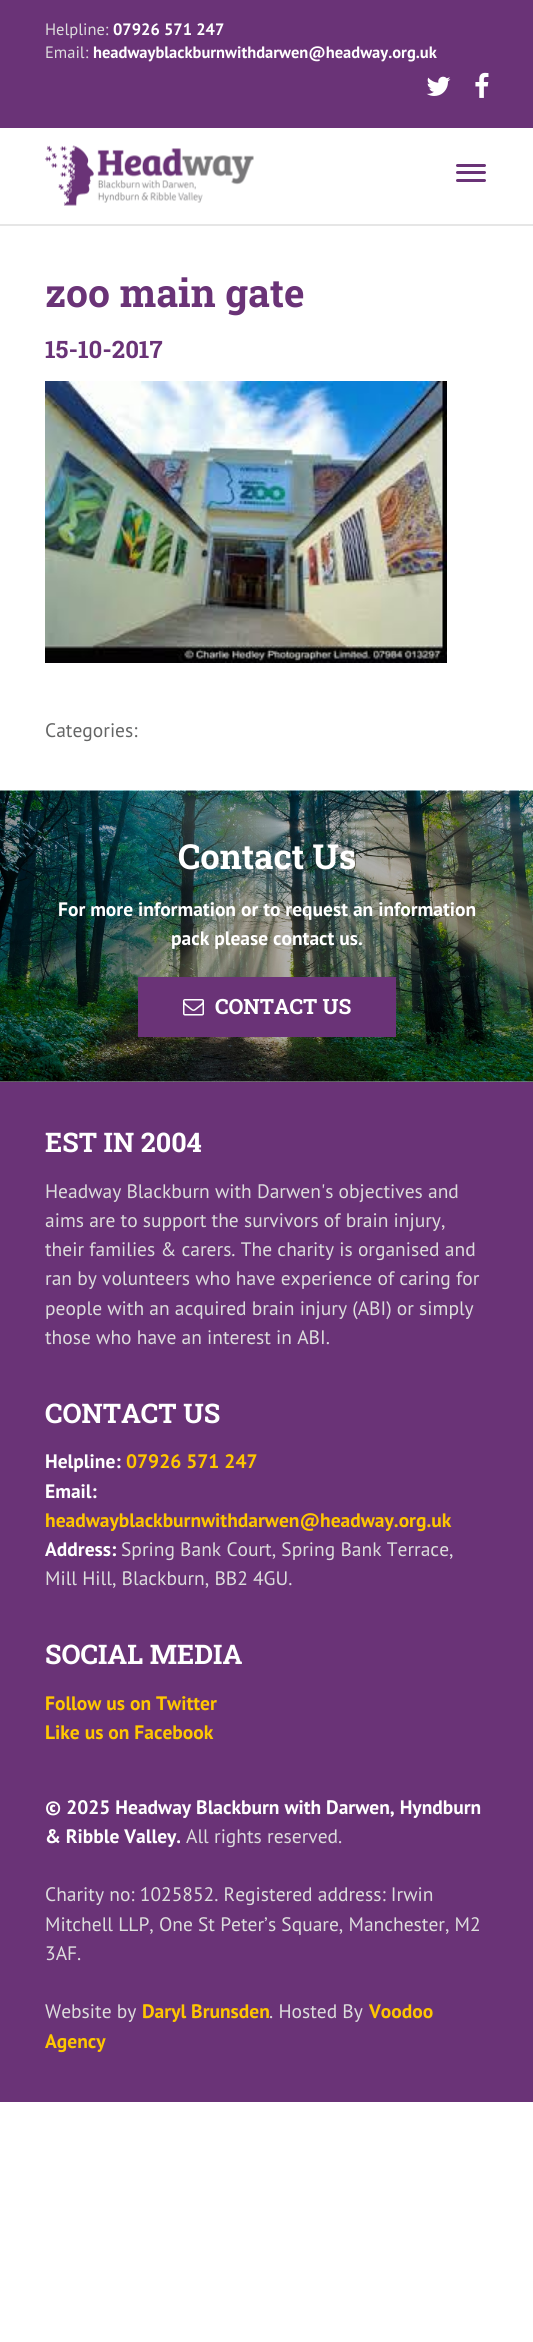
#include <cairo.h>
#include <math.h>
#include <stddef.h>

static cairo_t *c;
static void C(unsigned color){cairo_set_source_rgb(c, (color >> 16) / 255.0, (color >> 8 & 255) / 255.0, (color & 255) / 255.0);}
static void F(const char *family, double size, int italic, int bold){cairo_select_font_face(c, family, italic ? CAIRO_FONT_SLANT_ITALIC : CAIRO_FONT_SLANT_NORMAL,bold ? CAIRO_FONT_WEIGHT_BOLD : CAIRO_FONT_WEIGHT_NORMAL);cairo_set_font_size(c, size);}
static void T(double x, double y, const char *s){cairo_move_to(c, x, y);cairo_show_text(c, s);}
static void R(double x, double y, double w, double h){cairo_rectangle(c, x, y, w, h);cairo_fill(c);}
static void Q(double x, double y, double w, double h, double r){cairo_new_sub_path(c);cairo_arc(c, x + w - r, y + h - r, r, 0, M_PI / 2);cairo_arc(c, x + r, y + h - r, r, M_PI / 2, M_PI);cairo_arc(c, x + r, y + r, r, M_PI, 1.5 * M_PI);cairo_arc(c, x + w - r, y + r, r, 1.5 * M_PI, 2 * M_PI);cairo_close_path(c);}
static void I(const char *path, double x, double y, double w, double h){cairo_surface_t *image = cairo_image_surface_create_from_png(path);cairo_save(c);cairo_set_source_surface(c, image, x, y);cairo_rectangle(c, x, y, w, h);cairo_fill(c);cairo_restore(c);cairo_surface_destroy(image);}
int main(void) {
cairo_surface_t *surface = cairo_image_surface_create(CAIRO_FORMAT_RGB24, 533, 2342);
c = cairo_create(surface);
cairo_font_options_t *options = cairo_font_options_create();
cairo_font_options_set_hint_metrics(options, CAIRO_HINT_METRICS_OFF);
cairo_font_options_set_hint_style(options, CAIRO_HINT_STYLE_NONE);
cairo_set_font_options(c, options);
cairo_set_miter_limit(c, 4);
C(0xffffff);
cairo_paint(c);
C(0xb3b3b3);
R(0,1081,533,1);
C(0x6a3377);
R(0,0,533,128);
F("PT Sans",16.5,0,0);
C(0xdddddd);
T(45,35,"Helpline:");
F("PT Sans",16.5,0,1);
C(0xffffff);
T(113,35,"07926 571 247");
F("PT Sans",16.5,0,0);
C(0xdddddd);
T(45,58,"Email:");
F("PT Sans",16.5,0,1);
C(0xffffff);
T(93,58,"headwayblackburnwithdarwen@headway.org.uk");
I("1.png",426,76,25,20);
I("2.png",475,72,14,26);
C(0xe6e6e6);
R(0,224,533,2);
I("3.png",45,145,209,61);
C(0x6a3377);
Q(456,164,30,3,1.5);
cairo_fill(c);
Q(456,171,30,3,1.5);
cairo_fill(c);
Q(456,179,30,3,1.5);
cairo_fill(c);
F("Roboto Slab",39,0,1);
T(45,307,"zoo main gate");
F("Roboto Slab",24,0,1);
T(45,358,"15-10-2017");
I("4.png",45,381,402,282);
F("PT Sans",19.5,0,0);
C(0x646565);
T(45,737,"Categories:");
I("5.png",0,790,533,292);
F("Roboto Slab",34.5,0,1);
C(0xffffff);
T(178,869,"Contact Us");
F("PT Sans",19.5,0,1);
T(58,916,"For more information or to request an information");
T(171,945,"pack please contact us.");
C(0x6a3377);
R(138,977,258,60);
I("6.png",183,999,21,17);
F("Roboto Slab",21,0,1);
C(0xffffff);
T(215,1014,"CONTACT US");
C(0x6a3377);
R(0,1082,533,1020);
F("Roboto Slab",27,0,1);
C(0xffffff);
T(45,1152,"EST IN 2004");
F("PT Sans",19.5,0,0);
C(0xdddddd);
T(45,1198,"Headway Blackburn with Darwen's objectives and");
T(45,1227,"aims are to support the survivors of brain injury,");
T(45,1256,"their families & carers. The charity is organised and");
T(45,1285,"ran by volunteers who have experience of caring for");
T(45,1315,"people with an acquired brain injury (ABI) or simply");
T(45,1344,"those who have an interest in ABI.");
F("Roboto Slab",27,0,1);
C(0xffffff);
T(45,1423,"CONTACT US");
F("PT Sans",19.5,0,1);
T(45,1468,"Helpline:");
C(0xffc600);
T(126,1468,"07926 571 247");
C(0xffffff);
T(45,1498,"Email:");
C(0xffc600);
T(45,1527,"headwayblackburnwithdarwen@headway.org.uk");
C(0xffffff);
T(45,1556,"Address:");
F("PT Sans",19.5,0,0);
C(0xdddddd);
T(121,1556,"Spring Bank Court, Spring Bank Terrace,");
T(45,1585,"Mill Hill, Blackburn, BB2 4GU.");
F("Roboto Slab",27,0,1);
C(0xffffff);
T(45,1664,"SOCIAL MEDIA");
F("PT Sans",19.5,0,1);
C(0xffc600);
T(45,1710,"Follow us on Twitter");
T(45,1739,"Like us on Facebook");
C(0xffffff);
T(45,1814,"© 2025 Headway Blackburn with Darwen, Hyndburn");
T(45,1843,"& Ribble Valley.");
F("PT Sans",19.5,0,0);
C(0xdddddd);
T(186,1843,"All rights reserved.");
T(45,1901,"Charity no: 1025852. Registered address: Irwin");
T(45,1931,"Mitchell LLP, One St Peter’s Square, Manchester, M2");
T(45,1960,"3AF.");
T(45,2018,"Website by");
F("PT Sans",19.5,0,1);
C(0xffc600);
T(142,2018,"Daryl Brunsden");
F("PT Sans",19.5,0,0);
C(0xdddddd);
T(269,2018,". Hosted By");
F("PT Sans",19.5,0,1);
C(0xffc600);
T(369,2018,"Voodoo");
T(45,2048,"Agency");
cairo_surface_write_to_png(surface, "o.png");
cairo_font_options_destroy(options);
cairo_destroy(c);
cairo_surface_destroy(surface);
return 0;
}
